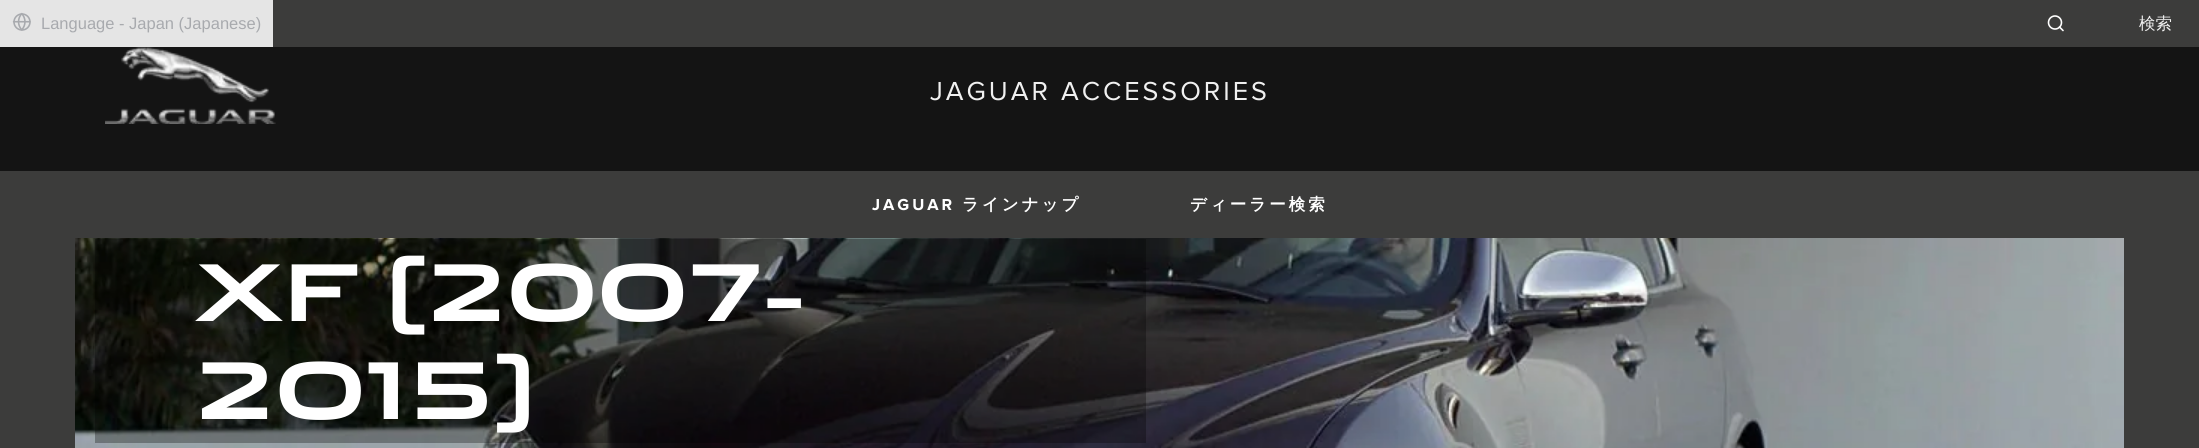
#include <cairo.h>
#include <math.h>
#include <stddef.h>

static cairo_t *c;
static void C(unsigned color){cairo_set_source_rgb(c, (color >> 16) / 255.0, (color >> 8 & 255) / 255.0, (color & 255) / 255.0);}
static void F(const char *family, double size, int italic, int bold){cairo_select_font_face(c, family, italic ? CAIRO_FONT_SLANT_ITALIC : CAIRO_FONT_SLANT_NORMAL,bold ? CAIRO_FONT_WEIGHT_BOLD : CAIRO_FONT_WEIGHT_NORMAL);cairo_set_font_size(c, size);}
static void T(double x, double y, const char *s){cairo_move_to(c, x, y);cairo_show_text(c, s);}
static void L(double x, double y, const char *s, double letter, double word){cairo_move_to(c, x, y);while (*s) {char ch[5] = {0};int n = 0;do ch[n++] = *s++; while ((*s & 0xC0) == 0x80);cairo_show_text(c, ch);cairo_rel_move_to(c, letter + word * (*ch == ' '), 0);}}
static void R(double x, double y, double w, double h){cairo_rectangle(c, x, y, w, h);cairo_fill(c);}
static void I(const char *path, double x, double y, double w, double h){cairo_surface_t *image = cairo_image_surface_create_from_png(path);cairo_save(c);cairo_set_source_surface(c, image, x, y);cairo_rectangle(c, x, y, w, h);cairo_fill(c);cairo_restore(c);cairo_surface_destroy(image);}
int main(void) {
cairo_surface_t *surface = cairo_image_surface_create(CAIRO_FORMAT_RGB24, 2199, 448);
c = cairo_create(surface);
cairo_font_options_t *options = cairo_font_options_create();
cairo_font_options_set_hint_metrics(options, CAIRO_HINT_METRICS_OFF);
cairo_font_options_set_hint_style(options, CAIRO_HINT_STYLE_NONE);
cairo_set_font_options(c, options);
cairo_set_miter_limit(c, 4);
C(0x141414);
cairo_paint(c);
C(0x3c3c3b);
R(273,0,1926,47);
C(0xe5e5e5);
R(0,0,273,47);
I("1.png",12,12,19,19);
F("Liberation Sans",16.5,0,0);
C(0xa8aaae);
T(41,29,"Language - Japan (Japanese)");
cairo_new_path(c);
cairo_arc(c,2055,22.5,6.5,0,2 * M_PI);
C(0xffffff);
cairo_set_line_width(c,1.6);
cairo_stroke(c);
cairo_new_path(c);
cairo_move_to(c,2063,30.5);
cairo_line_to(c,2059.5,27);
cairo_set_line_cap(c,CAIRO_LINE_CAP_ROUND);
cairo_set_line_join(c,CAIRO_LINE_JOIN_ROUND);
cairo_stroke(c);
F("WenQuanYi Zen Hei Medium",16.5,0,0);
C(0xf0f0f0);
T(2139,29,"検索");
I("2.png",105,47,171,77);
F("Proxima Nova",27,0,0);
L(930,100,"JAGUAR ACCESSORIES",3,0);
C(0x3c3c3b);
R(0,171,2199,277);
F("Proxima Nova",16.5,0,1);
C(0xffffff);
L(872,210,"JAGUAR",3,0);
F("WenQuanYi Zen Hei",16.5,0,1);
L(962,210,"ラインナップ",3,0);
L(1190,210,"ディーラー検索",3,0);
I("3.png",75,238,2049,210);
cairo_set_source_rgba(c,0,0,0,0.3);
R(95,239,1051,204);
F("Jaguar",78,0,1);
C(0xffffff);
T(194,321,"XF (2007-");
T(194,419,"2015)");
cairo_surface_write_to_png(surface, "o.png");
cairo_font_options_destroy(options);
cairo_destroy(c);
cairo_surface_destroy(surface);
return 0;
}
